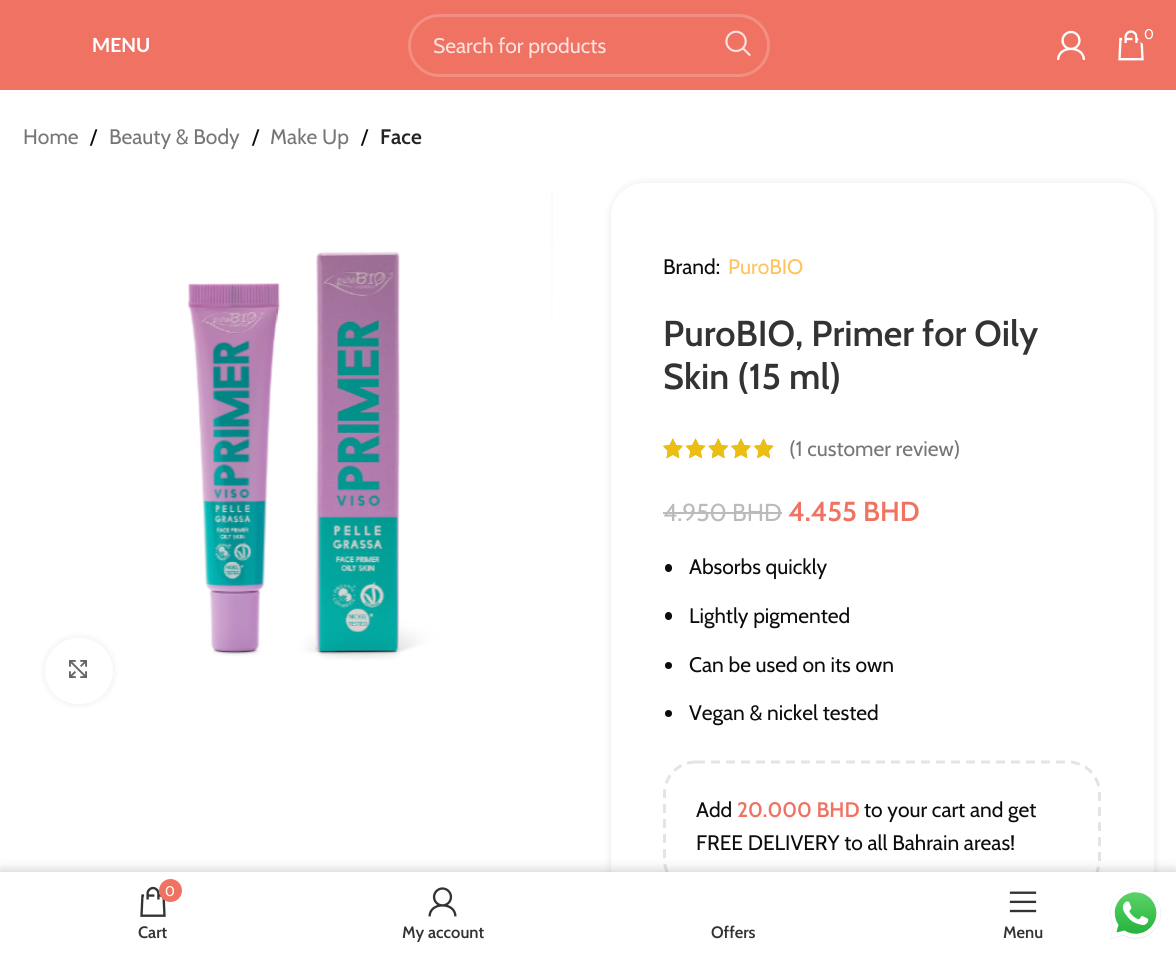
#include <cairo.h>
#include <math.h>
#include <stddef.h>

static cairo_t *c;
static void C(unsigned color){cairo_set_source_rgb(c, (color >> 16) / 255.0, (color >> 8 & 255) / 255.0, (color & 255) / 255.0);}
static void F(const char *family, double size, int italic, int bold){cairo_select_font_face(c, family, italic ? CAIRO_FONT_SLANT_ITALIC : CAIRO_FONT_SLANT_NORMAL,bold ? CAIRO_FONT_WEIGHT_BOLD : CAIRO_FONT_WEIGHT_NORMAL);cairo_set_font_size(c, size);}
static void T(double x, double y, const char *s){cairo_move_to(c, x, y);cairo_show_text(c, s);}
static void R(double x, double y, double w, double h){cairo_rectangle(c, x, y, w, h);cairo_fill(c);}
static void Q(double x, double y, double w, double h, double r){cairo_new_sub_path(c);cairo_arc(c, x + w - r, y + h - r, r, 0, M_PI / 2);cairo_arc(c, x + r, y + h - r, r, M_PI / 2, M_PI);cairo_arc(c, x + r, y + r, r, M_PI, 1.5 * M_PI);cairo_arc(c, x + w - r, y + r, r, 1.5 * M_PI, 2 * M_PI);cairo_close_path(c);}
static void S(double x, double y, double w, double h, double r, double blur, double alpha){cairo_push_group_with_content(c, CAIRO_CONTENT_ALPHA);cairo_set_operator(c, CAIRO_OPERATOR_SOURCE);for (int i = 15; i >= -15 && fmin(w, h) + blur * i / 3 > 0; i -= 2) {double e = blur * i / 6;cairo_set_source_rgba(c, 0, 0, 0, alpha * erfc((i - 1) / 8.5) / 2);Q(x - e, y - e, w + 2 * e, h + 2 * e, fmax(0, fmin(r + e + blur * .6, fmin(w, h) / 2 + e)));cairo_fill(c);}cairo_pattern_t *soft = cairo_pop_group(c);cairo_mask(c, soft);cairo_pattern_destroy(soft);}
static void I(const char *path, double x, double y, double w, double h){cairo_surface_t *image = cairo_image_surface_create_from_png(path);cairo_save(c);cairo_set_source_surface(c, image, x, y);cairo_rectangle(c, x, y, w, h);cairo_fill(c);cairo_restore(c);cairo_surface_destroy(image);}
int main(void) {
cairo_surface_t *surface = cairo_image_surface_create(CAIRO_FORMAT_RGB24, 1176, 953);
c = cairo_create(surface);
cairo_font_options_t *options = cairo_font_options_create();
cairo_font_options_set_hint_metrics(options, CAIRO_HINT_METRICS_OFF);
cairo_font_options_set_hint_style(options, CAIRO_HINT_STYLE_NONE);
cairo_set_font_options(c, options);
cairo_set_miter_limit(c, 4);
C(0xffffff);
cairo_paint(c);
C(0xf07263);
R(0,0,1176,90);
I("1.png",1057,30,28,30);
I("2.png",1118,30,26,31);
Q(1137,23,23,22,11);
cairo_fill(c);
F("Cabin",14,0,0);
C(0xffffff);
T(1144,39,"0");
F("Lato",19.5,0,1);
T(92,52,"MENU");
Q(409.5,15.5,359,60,30);
C(0xf38e82);
cairo_set_line_width(c,3);
cairo_stroke(c);
F("Cabin",21,0,0);
C(0xfce3e0);
T(433,53,"Search for products");
I("3.png",725,30,26,27);
C(0x767676);
T(23,144,"Home");
C(0x0c0c0c);
T(90,144,"/");
C(0x767676);
T(109,144,"Beauty & Body");
C(0x0c0c0c);
T(252,144,"/");
C(0x767676);
T(270,144,"Make Up");
C(0x0c0c0c);
T(361,144,"/");
F("Cabin SemiBold",21,0,0);
C(0x242424);
T(380,144,"Face");
I("4.png",187,190,366,470);
C(0x000000);
S(45,638,68,66,33,4,.08);
C(0xffffff);
Q(45,638,68,66,33);
cairo_fill(c);
I("5.png",69,660,18,18);
C(0x000000);
S(611,183,543,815,33,4,.1);
C(0xffffff);
Q(611,183,543,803,33);
cairo_fill(c);
F("Cabin",21,0,0);
C(0x0c0c0c);
T(663,274,"Brand:");
C(0xfec35d);
T(728,274,"PuroBIO");
F("Cabin SemiBold",36,0,0);
C(0x333333);
T(663,346,"PuroBIO, Primer for Oily");
T(663,389,"Skin (15 ml)");
I("6.png",663,438,111,20);
I("7.png",663,438,111,21);
I("8.png",663,438,111,21);
F("Cabin",21,0,0);
C(0x767676);
T(789,456,"(1 customer review)");
F("Cabin",24.5,0,0);
C(0xbbbbbb);
T(663,521,"4.950 BHD");
R(663,512,119,2);
F("Cabin SemiBold",27.5,0,0);
C(0xf07263);
T(788,521,"4.455 BHD");
C(0x0c0c0c);
Q(665,564,7,8,3.5);
cairo_fill(c);
F("Cabin",21,0,0);
T(689,574,"Absorbs quickly");
Q(665,612,7,8,3.5);
cairo_fill(c);
T(689,623,"Lightly pigmented");
cairo_new_path(c);
cairo_arc(c,668.5,665.5,3.5,0,2 * M_PI);
cairo_fill(c);
T(689,672,"Can be used on its own");
cairo_new_path(c);
cairo_arc(c,668.5,713.5,3.5,0,2 * M_PI);
cairo_fill(c);
T(689,720,"Vegan & nickel tested");
cairo_new_path(c);
cairo_move_to(c,696,762);
cairo_line_to(c,1068,762);
cairo_curve_to(c,1085.5,762,1099.5,776,1099.5,793.5);
cairo_line_to(c,1099.5,859.5);
cairo_curve_to(c,1099.5,877,1085.5,891,1068,891);
cairo_line_to(c,696,891);
cairo_curve_to(c,678.5,891,664.5,877,664.5,859.5);
cairo_line_to(c,664.5,793.5);
cairo_curve_to(c,664.5,776,678.5,762,696,762);
cairo_close_path(c);
C(0xe4e4e4);
cairo_set_dash(c,(double[]){9,6},2,0);
cairo_stroke(c);
C(0x0c0c0c);
T(696,817,"Add");
F("Cabin SemiBold",21,0,0);
C(0xf07263);
T(737,817,"20.000 BHD");
F("Cabin",21,0,0);
C(0x0c0c0c);
T(864,817,"to your cart and get");
T(696,850,"FREE DELIVERY to all Bahrain areas!");
C(0x000000);
S(0,872,1176,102,0,7,.12);
S(0,872,1176,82,0,7,.12);
C(0xffffff);
R(0,872,1176,81);
I("9.png",140,886,26,31);
C(0xf07263);
cairo_arc(c,170.5,890.5,11.5,0,2 * M_PI);
cairo_fill(c);
F("Cabin",14,0,0);
C(0xffffff);
T(165,896,"0");
F("Cabin SemiBold",16.5,0,0);
C(0x333333);
T(138,938,"Cart");
I("10.png",428,887,29,30);
T(402,938,"My account");
T(711,938,"Offers");
I("11.png",1009,891,28,22);
T(1003,938,"Menu");
I("12.png",1110,888,51,51);
cairo_surface_write_to_png(surface, "o.png");
cairo_font_options_destroy(options);
cairo_destroy(c);
cairo_surface_destroy(surface);
return 0;
}
